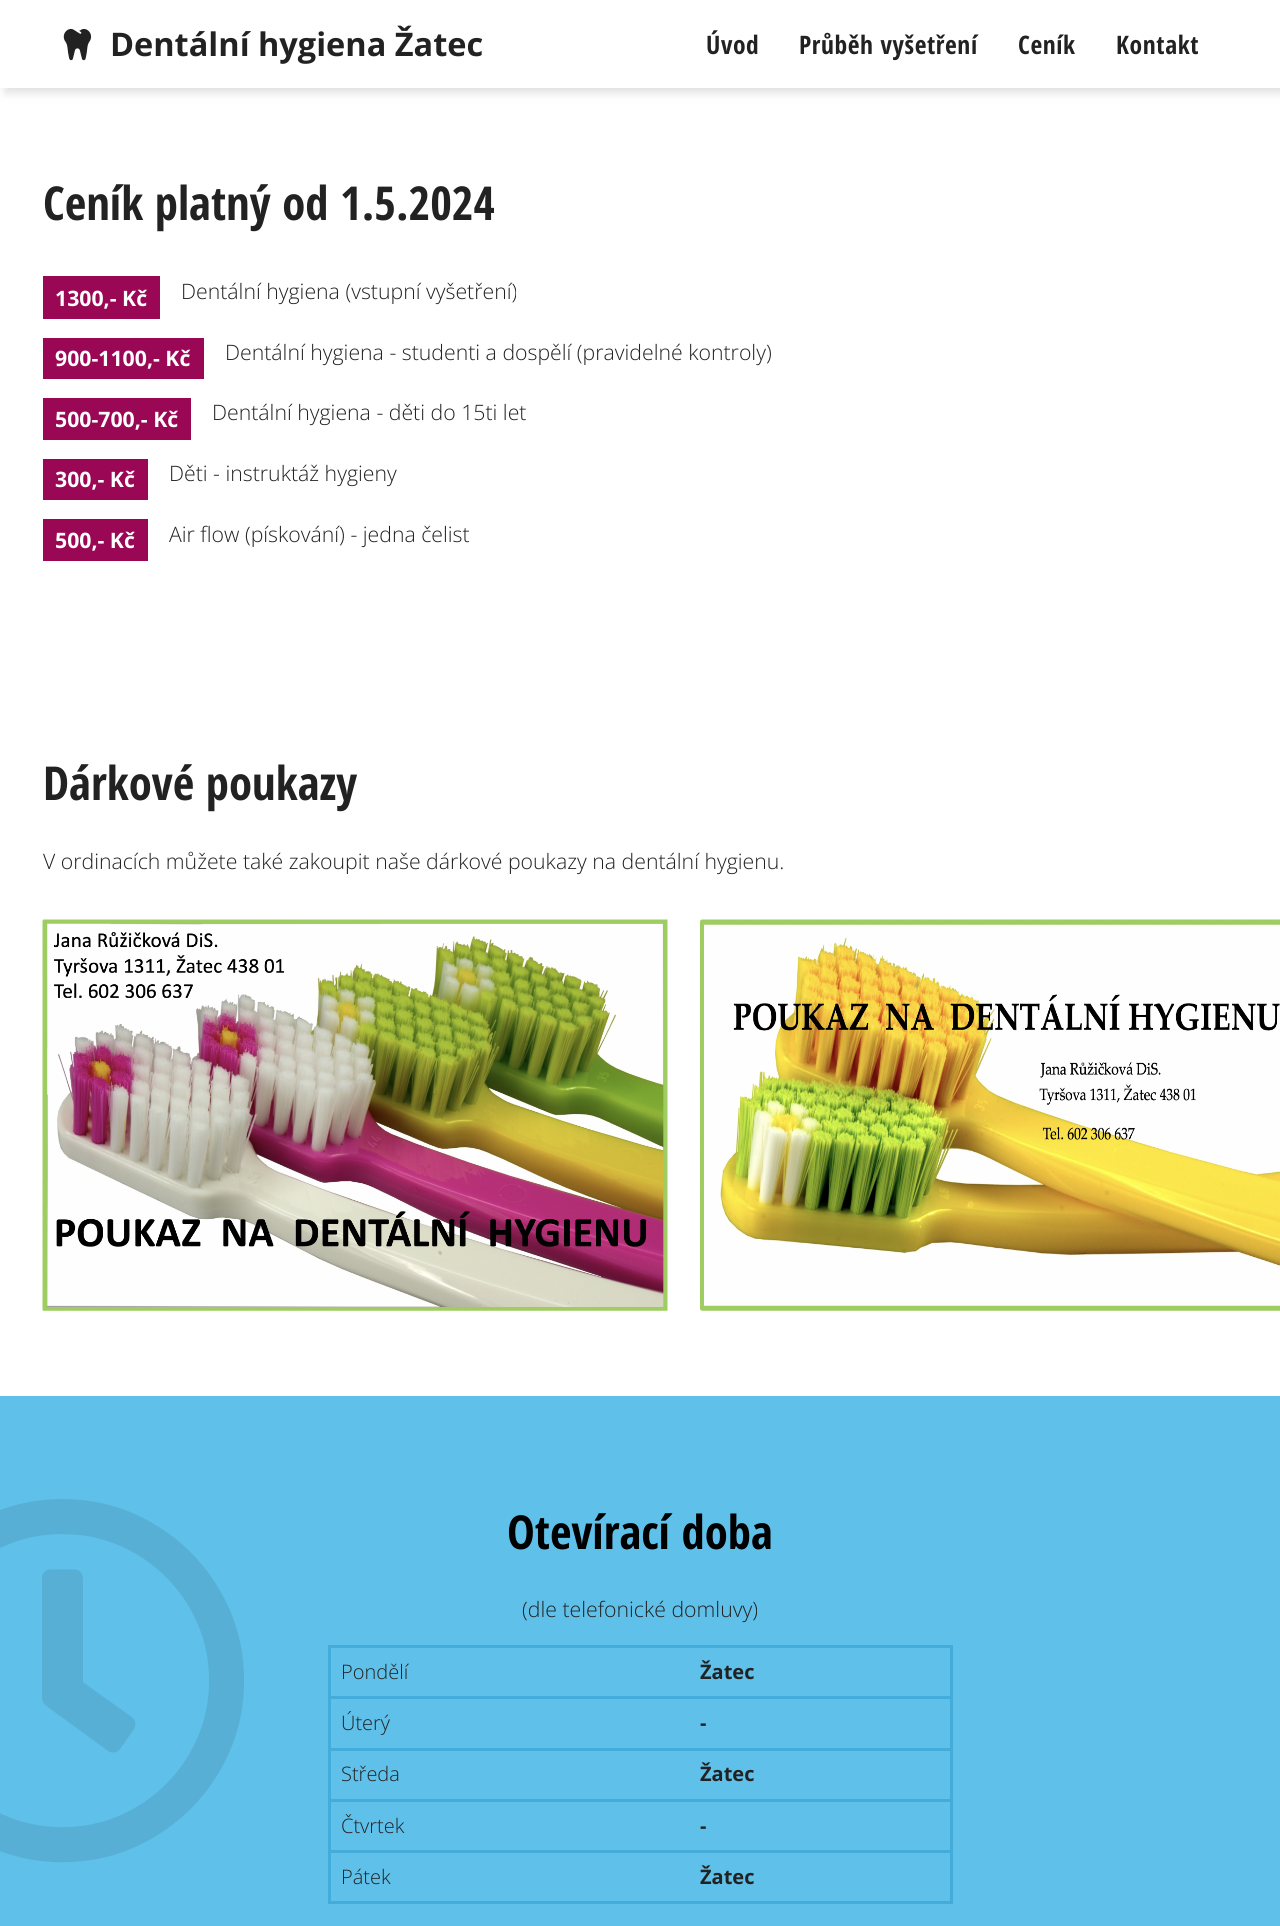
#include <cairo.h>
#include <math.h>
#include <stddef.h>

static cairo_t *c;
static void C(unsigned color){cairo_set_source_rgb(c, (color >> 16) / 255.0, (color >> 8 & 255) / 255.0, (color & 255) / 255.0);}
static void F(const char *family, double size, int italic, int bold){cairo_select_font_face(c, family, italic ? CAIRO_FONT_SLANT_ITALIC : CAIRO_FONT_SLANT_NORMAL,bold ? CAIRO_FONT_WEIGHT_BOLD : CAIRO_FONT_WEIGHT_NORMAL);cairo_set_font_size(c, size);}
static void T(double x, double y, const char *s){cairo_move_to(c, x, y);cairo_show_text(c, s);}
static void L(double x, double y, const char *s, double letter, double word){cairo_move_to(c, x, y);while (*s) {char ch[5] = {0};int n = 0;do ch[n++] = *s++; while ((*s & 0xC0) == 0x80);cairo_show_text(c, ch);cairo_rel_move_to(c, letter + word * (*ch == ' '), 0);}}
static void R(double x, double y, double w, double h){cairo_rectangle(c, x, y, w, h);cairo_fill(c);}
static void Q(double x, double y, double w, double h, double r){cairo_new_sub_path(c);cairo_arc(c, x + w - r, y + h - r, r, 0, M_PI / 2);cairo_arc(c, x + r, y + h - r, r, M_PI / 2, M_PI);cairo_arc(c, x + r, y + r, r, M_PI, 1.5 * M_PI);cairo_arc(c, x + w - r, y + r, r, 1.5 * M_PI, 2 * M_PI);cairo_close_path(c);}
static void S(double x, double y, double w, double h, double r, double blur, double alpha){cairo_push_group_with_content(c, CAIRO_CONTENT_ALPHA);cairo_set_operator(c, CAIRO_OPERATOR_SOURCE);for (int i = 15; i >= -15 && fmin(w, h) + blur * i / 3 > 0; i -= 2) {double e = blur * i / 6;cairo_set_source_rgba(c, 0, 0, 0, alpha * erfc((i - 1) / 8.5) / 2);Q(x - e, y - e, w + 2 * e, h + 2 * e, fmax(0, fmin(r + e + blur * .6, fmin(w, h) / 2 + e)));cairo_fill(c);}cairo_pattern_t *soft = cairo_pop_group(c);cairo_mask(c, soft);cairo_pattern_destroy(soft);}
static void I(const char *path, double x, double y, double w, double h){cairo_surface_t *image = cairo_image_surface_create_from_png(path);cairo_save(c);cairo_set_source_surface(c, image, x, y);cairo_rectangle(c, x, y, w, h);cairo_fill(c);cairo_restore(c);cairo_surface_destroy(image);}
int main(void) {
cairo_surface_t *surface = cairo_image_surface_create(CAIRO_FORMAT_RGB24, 1280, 1926);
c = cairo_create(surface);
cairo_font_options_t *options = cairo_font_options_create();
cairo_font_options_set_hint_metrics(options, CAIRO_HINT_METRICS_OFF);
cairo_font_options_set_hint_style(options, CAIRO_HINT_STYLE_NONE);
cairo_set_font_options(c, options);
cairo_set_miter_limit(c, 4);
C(0xffffff);
cairo_paint(c);
C(0x646464);
S(5,5,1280,88,0,4.5,.2);
C(0xffffff);
R(0,0,1280,88);
I("1.png",63,28,29,33);
F("Open Sans",32.5,0,1);
C(0x222222);
T(110,56,"Dentální hygiena Žatec");
F("Open Sans Condensed",25.5,0,1);
L(706,54,"Úvod",.6,0);
L(799,54,"Průběh vyšetření",.6,0);
L(1018,54,"Ceník",.6,0);
L(1116,54,"Kontakt",.6,0);
F("Open Sans Condensed",46.75,0,1);
T(43,220,"Ceník platný od 1.5.2024");
C(0x9a0855);
R(43,276,117,43);
F("Open Sans",21.25,0,1);
C(0xffffff);
T(55,306,"1300,- Kč");
F("Open Sans Light",21.25,0,0);
C(0x222222);
T(181,299,"Dentální hygiena (vstupní vyšetření)");
C(0x9a0855);
R(43,338,161,41);
F("Open Sans",21.25,0,1);
C(0xffffff);
T(55,366,"900-1100,- Kč");
F("Open Sans Light",21.25,0,0);
C(0x222222);
T(225,360,"Dentální hygiena - studenti a dospělí (pravidelné kontroly)");
C(0x9a0855);
R(43,398,148,42);
F("Open Sans",21.25,0,1);
C(0xffffff);
T(55,427,"500-700,- Kč");
F("Open Sans Light",21.25,0,0);
C(0x222222);
T(212,420,"Dentální hygiena - děti do 15ti let");
C(0x9a0855);
R(43,459,105,41);
F("Open Sans",21.25,0,1);
C(0xffffff);
T(55,487,"300,- Kč");
F("Open Sans Light",21.25,0,0);
C(0x222222);
T(169,481,"Děti - instruktáž hygieny");
C(0x9a0855);
R(43,519,105,42);
F("Open Sans",21.25,0,1);
C(0xffffff);
T(55,548,"500,- Kč");
F("Open Sans Light",21.25,0,0);
C(0x222222);
T(169,542,"Air flow (pískování) - jedna čelist");
F("Open Sans Condensed",46.75,0,1);
T(43,800,"Dárkové poukazy");
F("Open Sans Light",21.25,0,0);
T(43,869,"V ordinacích můžete také zakoupit naše dárkové poukazy na dentální hygienu.");
I("2.png",42,919,626,392);
I("3.png",700,919,580,392);
C(0x5fc0ea);
R(0,1396,1280,530);
I("4.png",0,1499,244,364);
F("Open Sans Condensed",46.75,0,1);
C(0x000000);
T(507,1549,"Otevírací doba");
F("Open Sans Light",21.25,0,0);
C(0x222222);
T(522,1617,"(dle telefonické domluvy)");
C(0x43acda);
R(328,1645,625,3);
R(950,1645,3,259);
R(328,1901,625,3);
R(328,1645,3,259);
R(328,1696,625,3);
F("Open Sans Light",20,0,0);
C(0x222222);
T(341,1679,"Pondělí");
F("Open Sans",20,0,1);
T(700,1679,"Žatec");
C(0x43acda);
R(328,1748,625,3);
F("Open Sans Light",20,0,0);
C(0x222222);
T(341,1730,"Úterý");
F("Open Sans",20,0,1);
T(700,1730,"-");
C(0x43acda);
R(328,1799,625,3);
F("Open Sans Light",20,0,0);
C(0x222222);
T(341,1781,"Středa");
F("Open Sans",20,0,1);
T(700,1781,"Žatec");
C(0x43acda);
R(328,1850,625,3);
F("Open Sans Light",20,0,0);
C(0x222222);
T(341,1833,"Čtvrtek");
F("Open Sans",20,0,1);
T(700,1833,"-");
F("Open Sans Light",20,0,0);
T(341,1884,"Pátek");
F("Open Sans",20,0,1);
T(700,1884,"Žatec");
cairo_surface_write_to_png(surface, "o.png");
cairo_font_options_destroy(options);
cairo_destroy(c);
cairo_surface_destroy(surface);
return 0;
}
